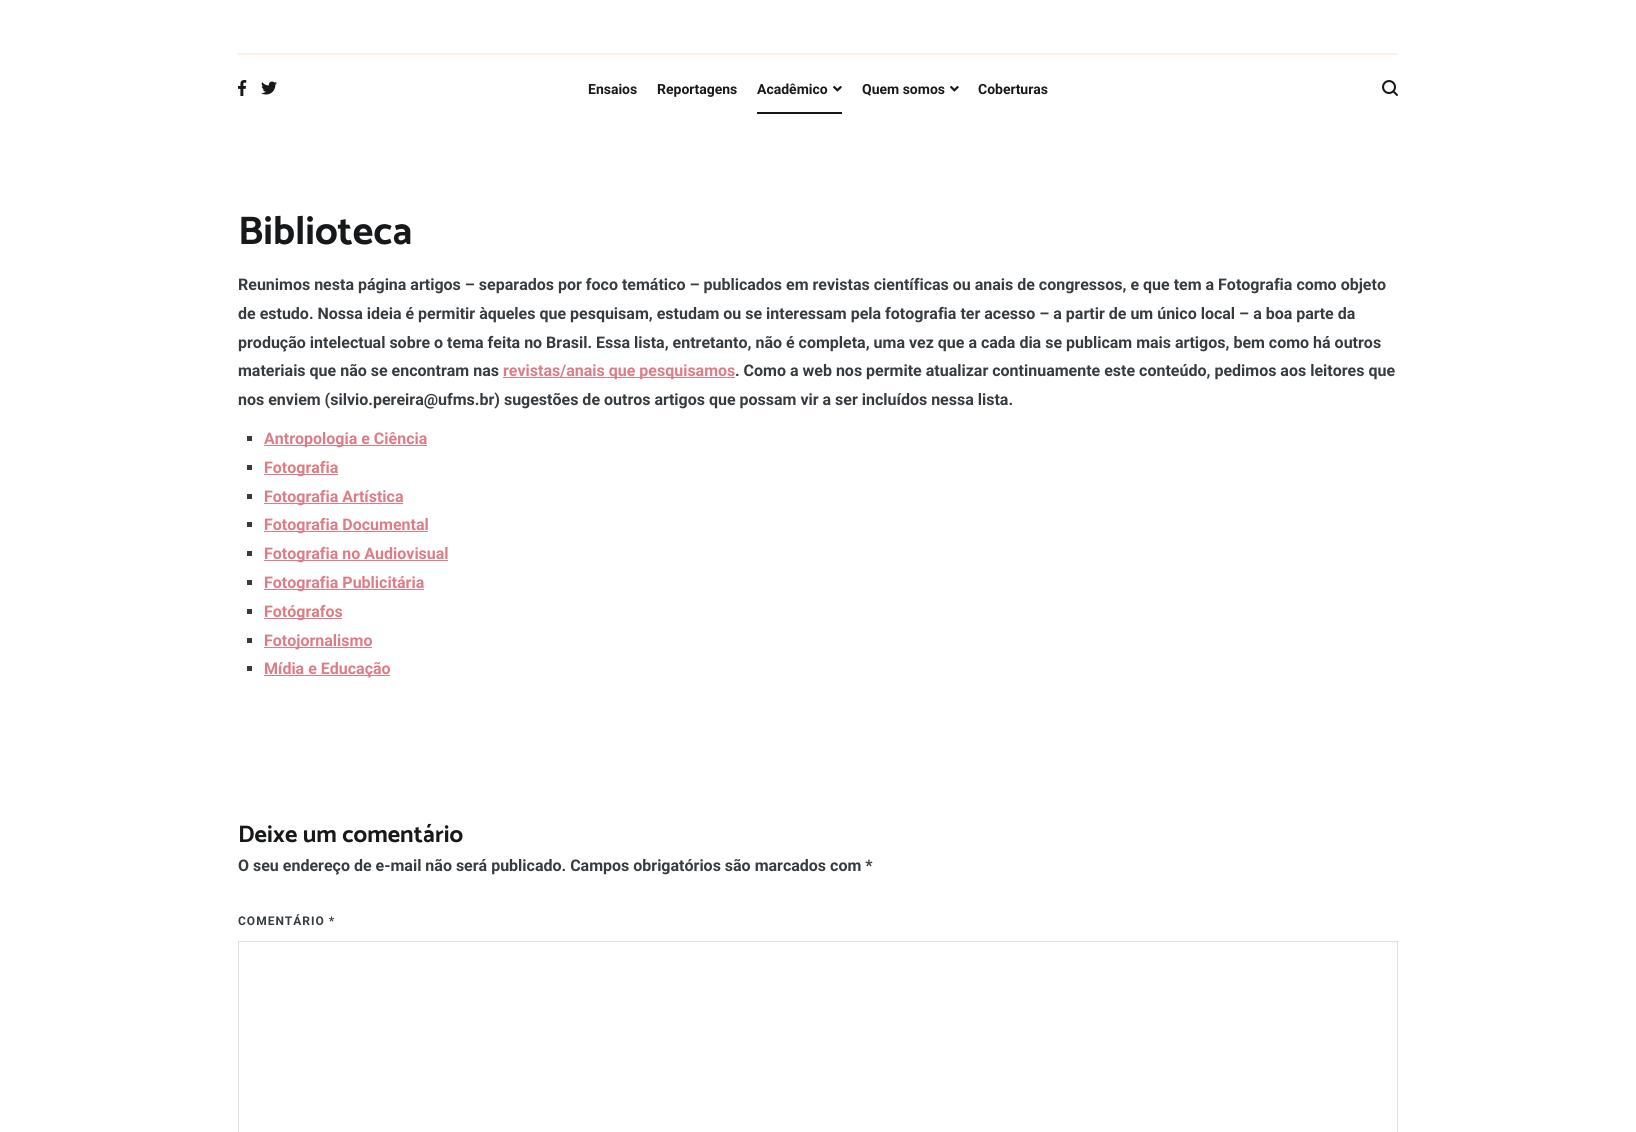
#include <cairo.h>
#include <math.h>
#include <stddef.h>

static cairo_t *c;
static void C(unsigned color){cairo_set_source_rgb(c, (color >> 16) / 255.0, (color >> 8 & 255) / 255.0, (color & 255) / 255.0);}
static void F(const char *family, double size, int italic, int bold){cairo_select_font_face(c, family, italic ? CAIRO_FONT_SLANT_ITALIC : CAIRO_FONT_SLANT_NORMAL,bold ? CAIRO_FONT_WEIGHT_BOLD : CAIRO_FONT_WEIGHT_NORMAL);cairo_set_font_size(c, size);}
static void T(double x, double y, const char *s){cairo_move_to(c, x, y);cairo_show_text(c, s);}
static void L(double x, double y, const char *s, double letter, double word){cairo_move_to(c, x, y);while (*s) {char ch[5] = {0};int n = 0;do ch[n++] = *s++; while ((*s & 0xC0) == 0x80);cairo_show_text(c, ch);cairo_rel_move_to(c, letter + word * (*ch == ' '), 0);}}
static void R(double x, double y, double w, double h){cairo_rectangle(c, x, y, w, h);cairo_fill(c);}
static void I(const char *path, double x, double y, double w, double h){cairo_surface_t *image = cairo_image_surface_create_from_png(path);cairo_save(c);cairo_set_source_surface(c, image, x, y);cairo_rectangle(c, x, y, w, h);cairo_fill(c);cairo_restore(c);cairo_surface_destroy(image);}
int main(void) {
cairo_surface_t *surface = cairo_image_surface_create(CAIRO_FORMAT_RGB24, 1636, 1132);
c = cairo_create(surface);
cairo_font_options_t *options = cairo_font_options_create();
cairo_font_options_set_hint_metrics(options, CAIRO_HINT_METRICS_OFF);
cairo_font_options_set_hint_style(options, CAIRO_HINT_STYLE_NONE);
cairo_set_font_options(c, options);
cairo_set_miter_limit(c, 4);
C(0xffffff);
cairo_paint(c);
C(0xfff0e6);
R(238,53,1160,2);
I("1.png",238,80,9,16);
I("2.png",261,81,16,14);
F("Roboto",14,0,1);
C(0x16181a);
T(588,94,"Ensaios");
T(657,94,"Reportagens");
R(757,112,85,2);
T(757,94,"Acadêmico");
I("3.png",833,86,9,6);
T(862,94,"Quem somos");
I("3.png",950,86,9,6);
T(978,94,"Coberturas");
I("4.png",1382,80,16,16);
F("Catamaran",40,0,1);
T(238,244,"Biblioteca");
F("Roboto",16,0,1);
C(0x363b40);
T(238,290,"Reunimos nesta página artigos – separados por foco temático – publicados em revistas científicas ou anais de congressos, e que tem a Fotografia como objeto");
T(238,319,"de estudo. Nossa ideia é permitir àqueles que pesquisam, estudam ou se interessam pela fotografia ter acesso – a partir de um único local – a boa parte da");
T(238,348,"produção intelectual sobre o tema feita no Brasil. Essa lista, entretanto, não é completa, uma vez que a cada dia se publicam mais artigos, bem como há outros");
T(238,376,"materiais que não se encontram nas");
C(0xde7b85);
R(503,377,232,1);
T(503,376,"revistas/anais que pesquisamos");
C(0x363b40);
T(735,376,". Como a web nos permite atualizar continuamente este conteúdo, pedimos aos leitores que");
T(238,405,"nos enviem (silvio.pereira@ufms.br) sugestões de outros artigos que possam vir a ser incluídos nessa lista.");
R(247,436,5,5);
C(0xde7b85);
R(264,445,163,1);
T(264,444,"Antropologia e Ciência");
C(0x363b40);
R(247,465,5,5);
C(0xde7b85);
R(264,474,74,1);
T(264,473,"Fotografia");
C(0x363b40);
R(247,494,5,5);
C(0xde7b85);
R(264,503,139,1);
T(264,502,"Fotografia Artística");
C(0x363b40);
R(247,522,5,5);
C(0xde7b85);
R(264,531,164,1);
T(264,530,"Fotografia Documental");
C(0x363b40);
R(247,551,5,5);
C(0xde7b85);
R(264,560,184,1);
T(264,559,"Fotografia no Audiovisual");
C(0x363b40);
R(247,580,5,5);
C(0xde7b85);
R(264,589,160,1);
T(264,588,"Fotografia Publicitária");
C(0x363b40);
R(247,609,5,5);
C(0xde7b85);
R(264,618,78,1);
T(264,617,"Fotógrafos");
C(0x363b40);
R(247,638,5,5);
C(0xde7b85);
R(264,647,108,1);
T(264,646,"Fotojornalismo");
C(0x363b40);
R(247,666,5,5);
C(0xde7b85);
R(264,675,126,1);
T(264,674,"Mídia e Educação");
F("Catamaran",24,0,1);
C(0x16181a);
T(238,842,"Deixe um comentário");
F("Roboto",16,0,1);
C(0x363b40);
T(238,871,"O seu endereço de e-mail não será publicado. Campos obrigatórios são marcados com *");
F("Roboto",12,0,1);
L(238,925,"COMENTÁRIO *",1,0);
cairo_rectangle(c,238.5,941.5,1159,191);
C(0xdee2e6);
cairo_set_line_width(c,1);
cairo_stroke(c);
cairo_surface_write_to_png(surface, "o.png");
cairo_font_options_destroy(options);
cairo_destroy(c);
cairo_surface_destroy(surface);
return 0;
}
